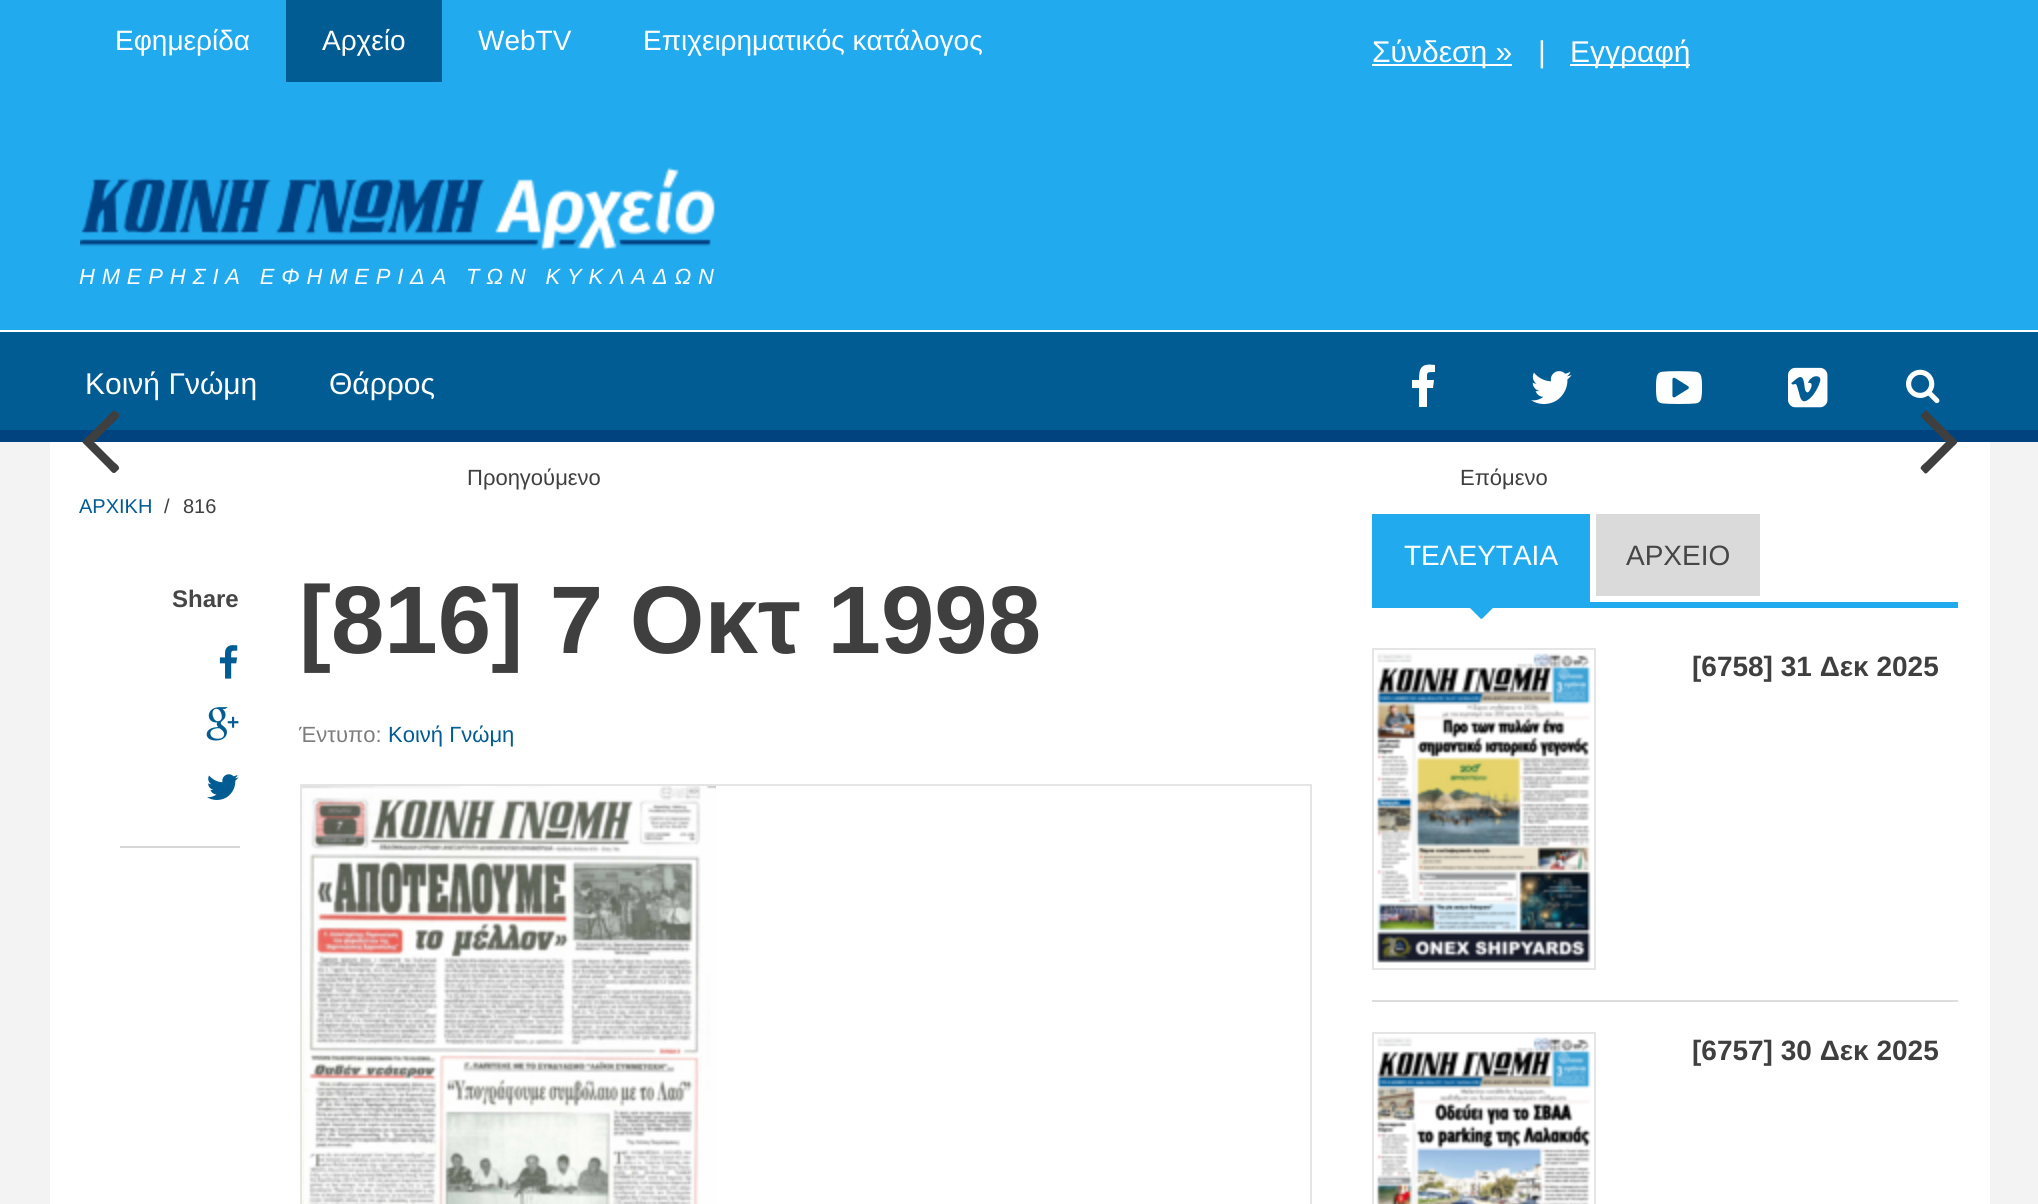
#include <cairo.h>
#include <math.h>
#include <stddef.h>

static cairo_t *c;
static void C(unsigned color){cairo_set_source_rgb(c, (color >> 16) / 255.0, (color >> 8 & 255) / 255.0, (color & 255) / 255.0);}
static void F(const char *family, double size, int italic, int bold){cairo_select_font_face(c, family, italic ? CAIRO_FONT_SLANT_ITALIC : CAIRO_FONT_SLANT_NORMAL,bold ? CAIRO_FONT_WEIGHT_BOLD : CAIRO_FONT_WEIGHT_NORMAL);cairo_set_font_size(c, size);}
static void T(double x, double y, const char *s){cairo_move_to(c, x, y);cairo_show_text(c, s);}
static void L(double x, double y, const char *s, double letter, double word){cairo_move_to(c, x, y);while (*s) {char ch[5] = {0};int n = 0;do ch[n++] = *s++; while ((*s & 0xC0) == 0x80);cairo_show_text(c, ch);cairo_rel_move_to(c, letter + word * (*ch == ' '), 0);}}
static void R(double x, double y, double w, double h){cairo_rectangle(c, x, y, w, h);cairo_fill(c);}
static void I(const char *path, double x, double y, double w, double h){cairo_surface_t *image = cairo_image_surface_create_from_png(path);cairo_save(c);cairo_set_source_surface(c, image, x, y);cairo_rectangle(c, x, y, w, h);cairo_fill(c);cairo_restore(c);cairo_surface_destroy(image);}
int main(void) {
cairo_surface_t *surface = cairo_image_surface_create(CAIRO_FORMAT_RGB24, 2038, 1204);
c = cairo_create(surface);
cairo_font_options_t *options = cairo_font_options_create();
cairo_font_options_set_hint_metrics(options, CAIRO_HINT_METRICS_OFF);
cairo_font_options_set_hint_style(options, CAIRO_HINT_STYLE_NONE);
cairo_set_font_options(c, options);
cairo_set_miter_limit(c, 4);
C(0xf3f3f3);
cairo_paint(c);
C(0x22aaee);
R(0,0,2038,330);
F("Liberation Sans",28,0,0);
C(0xffffff);
T(115,50,"Εφημερίδα");
C(0x005c93);
R(286,0,156,82);
C(0xffffff);
T(322,50,"Αρχείο");
T(478,50,"WebTV");
T(643,50,"Επιχειρηματικός κατάλογος");
R(1372,64,140,2);
F("Liberation Sans",30,0,0);
T(1372,62,"Σύνδεση »");
T(1538,62,"|");
R(1570,64,120,2);
T(1570,62,"Εγγραφή");
R(0,330,2038,2);
I("1.png",80,167,635,84);
F("Liberation Sans",22,1,0);
L(79,284,"ΗΜΕΡΗΣΙΑ ΕΦΗΜΕΡΙΔΑ ΤΩΝ ΚΥΚΛΑΔΩΝ",6.8,0);
C(0x005c93);
R(0,332,2038,98);
C(0x00437f);
R(0,430,2038,12);
F("Liberation Sans",30,0,0);
C(0xffffff);
T(85,394,"Κοινή Γνώμη");
T(329,394,"Θάρρος");
cairo_new_path(c);
cairo_move_to(c,1412,388);
cairo_line_to(c,1412,380);
cairo_line_to(c,1419,380);
cairo_curve_to(c,1419,368,1421,363,1435,365);
cairo_line_to(c,1435,372);
cairo_curve_to(c,1426,372,1427,372,1427,380);
cairo_line_to(c,1434,380);
cairo_line_to(c,1433,388);
cairo_line_to(c,1427,388);
cairo_line_to(c,1427,407);
cairo_line_to(c,1419,407);
cairo_line_to(c,1419,388);
cairo_close_path(c);
cairo_fill(c);
I("2.png",1531,371,41,33);
I("3.png",1656,371,46,33);
I("4.png",1788,367,40,41);
I("5.png",1906,369,34,35);
R(50,442,1940,762);
C(0x3f3f3f);
cairo_new_path(c);
cairo_move_to(c,83,443);
cairo_curve_to(c,81,441,88,436,88,436);
cairo_line_to(c,108,416);
cairo_curve_to(c,108,416,113,409,115,411);
cairo_curve_to(c,117,412,121,415,119,417);
cairo_line_to(c,94,442);
cairo_line_to(c,114,462);
cairo_curve_to(c,115,463,120,466,119,469);
cairo_line_to(c,116,472);
cairo_curve_to(c,113,475,111,471,108,468);
cairo_close_path(c);
cairo_fill(c);
F("Liberation Sans",22,0,0);
T(467,485,"Προηγούμενο");
cairo_new_path(c);
cairo_move_to(c,1921,469);
cairo_curve_to(c,1919,467,1925,463,1926,462);
cairo_line_to(c,1946,442);
cairo_line_to(c,1921,417);
cairo_curve_to(c,1920,415,1922,414,1924,412);
cairo_curve_to(c,1925,411,1926,410,1927,411);
cairo_line_to(c,1952,436);
cairo_curve_to(c,1959,443,1959,441,1952,448);
cairo_line_to(c,1927,473);
cairo_curve_to(c,1925,475,1923,471,1921,469);
cairo_close_path(c);
cairo_fill(c);
T(1460,485,"Επόμενο");
F("Liberation Sans",20,0,0);
C(0x005c93);
T(79,513,"ΑΡΧΙΚΗ");
C(0x3f3f3f);
T(164,513,"/");
T(183,513,"816");
C(0xd7d7d7);
R(120,846,120,2);
F("Liberation Sans",24,0,1);
C(0x464646);
T(172,607,"Share");
I("6.png",219,645,19,34);
I("7.png",206,707,33,34);
I("8.png",207,774,32,26);
F("Liberation Sans",96,0,1);
C(0x3f3f3f);
T(299,653,"[816] 7 Οκτ 1998");
F("Liberation Sans",22,0,0);
C(0x7d7d7d);
T(299,742,"Έντυπο:");
C(0x005c93);
T(388,742,"Κοινή Γνώμη");
cairo_rectangle(c,301,785,1010,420);
C(0xe5e5e5);
cairo_stroke(c);
I("9.png",302,786,414,418);
C(0x22aaee);
R(1372,602,586,6);
R(1374,516,214,80);
R(1372,514,218,2);
R(1588,514,2,88);
R(1372,596,218,6);
R(1372,514,2,88);
F("Liberation Sans",28,0,0);
C(0xffffff);
T(1404,565,"ΤΕΛΕΥΤΑΙΑ");
I("10.png",1470,608,23,11);
C(0xdadada);
R(1596,516,164,80);
R(1594,514,168,2);
C(0xffffff);
R(1760,514,2,2);
R(1594,514,2,2);
C(0x464646);
T(1626,565,"ΑΡΧΕΙΟ");
C(0xdddddd);
R(1372,1000,586,2);
cairo_rectangle(c,1373,649,222,320);
C(0xe5e5e5);
cairo_stroke(c);
I("11.png",1376,653,215,310);
F("Liberation Sans",28,0,1);
C(0x3f3f3f);
T(1692,676,"[6758] 31 Δεκ 2025");
cairo_rectangle(c,1373,1033,222,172);
C(0xe5e5e5);
cairo_stroke(c);
I("12.png",1376,1037,215,167);
C(0x3f3f3f);
T(1692,1060,"[6757] 30 Δεκ 2025");
cairo_surface_write_to_png(surface, "o.png");
cairo_font_options_destroy(options);
cairo_destroy(c);
cairo_surface_destroy(surface);
return 0;
}
